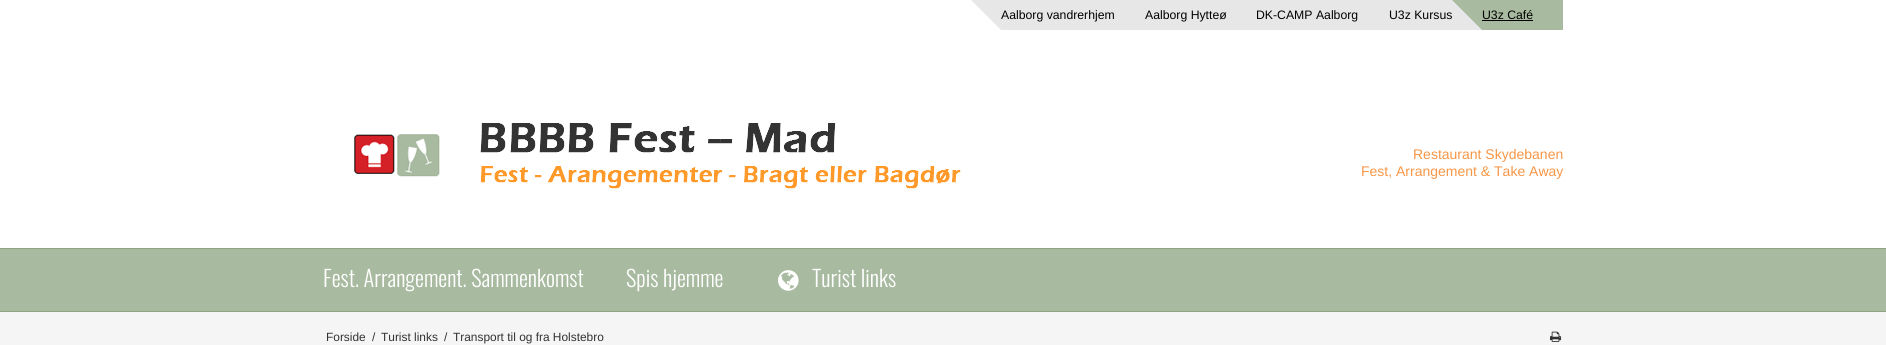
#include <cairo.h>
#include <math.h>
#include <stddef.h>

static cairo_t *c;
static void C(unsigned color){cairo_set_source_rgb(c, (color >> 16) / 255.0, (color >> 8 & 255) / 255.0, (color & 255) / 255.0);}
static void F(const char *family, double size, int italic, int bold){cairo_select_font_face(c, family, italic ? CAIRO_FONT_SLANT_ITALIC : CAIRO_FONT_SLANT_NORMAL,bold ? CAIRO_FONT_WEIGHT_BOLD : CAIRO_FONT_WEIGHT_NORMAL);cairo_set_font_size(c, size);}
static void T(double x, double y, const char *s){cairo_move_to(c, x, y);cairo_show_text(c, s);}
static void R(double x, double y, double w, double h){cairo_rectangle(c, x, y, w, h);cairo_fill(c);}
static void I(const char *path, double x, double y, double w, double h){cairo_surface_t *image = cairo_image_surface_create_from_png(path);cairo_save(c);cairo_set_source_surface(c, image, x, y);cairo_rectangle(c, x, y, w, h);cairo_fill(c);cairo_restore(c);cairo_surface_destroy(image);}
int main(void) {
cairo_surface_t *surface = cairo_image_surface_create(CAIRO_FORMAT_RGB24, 1886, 345);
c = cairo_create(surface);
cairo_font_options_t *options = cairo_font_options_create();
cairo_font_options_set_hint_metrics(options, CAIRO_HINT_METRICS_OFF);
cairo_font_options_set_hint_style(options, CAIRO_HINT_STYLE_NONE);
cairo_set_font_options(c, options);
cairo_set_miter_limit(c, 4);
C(0xf5f5f5);
cairo_paint(c);
C(0xffffff);
R(0,0,1886,248);
C(0xa8baa0);
R(1482,0,81,30);
C(0xe7e7e7);
R(1001,0,481,30);
cairo_new_path(c);
cairo_move_to(c,1001,-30);
cairo_line_to(c,1001,30);
cairo_line_to(c,971,0);
cairo_close_path(c);
cairo_fill(c);
F("Liberation Sans",12.25,0,0);
C(0x000000);
T(1001,19,"Aalborg vandrerhjem");
T(1145,19,"Aalborg Hytteø");
C(0xe7e7e7);
cairo_new_path(c);
cairo_move_to(c,1145,-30);
cairo_line_to(c,1145,30);
cairo_line_to(c,1115,0);
cairo_close_path(c);
cairo_fill(c);
C(0x000000);
T(1256,19,"DK-CAMP Aalborg");
T(1389,19,"U3z Kursus");
C(0xa8baa0);
cairo_new_path(c);
cairo_move_to(c,1482,-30);
cairo_line_to(c,1482,30);
cairo_line_to(c,1452,0);
cairo_close_path(c);
cairo_fill(c);
C(0x000000);
T(1482,19,"U3z Café");
R(1482,20,51,1);
I("1.png",354,123,607,66);
F("Liberation Sans",14,0,0);
C(0xf79646);
T(1413,159,"Restaurant Skydebanen");
T(1361,176,"Fest, Arrangement & Take Away");
C(0xa8baa0);
R(0,249,1886,62);
C(0x8da582);
R(0,248,1886,1);
R(0,311,1886,1);
F("Oswald Light",22.4,0,0);
C(0xffffff);
T(323,287,"Fest. Arrangement. Sammenkomst");
T(626,287,"Spis hjemme");
I("2.png",778,270,21,21);
T(812,287,"Turist links");
F("Liberation Sans",11.9,0,0);
C(0x323232);
T(326,341,"Forside");
T(372,341,"/");
T(381,341,"Turist links");
T(444,341,"/");
T(453,341,"Transport til og fra Holstebro");
I("3.png",1550,331,12,11);
cairo_surface_write_to_png(surface, "o.png");
cairo_font_options_destroy(options);
cairo_destroy(c);
cairo_surface_destroy(surface);
return 0;
}
